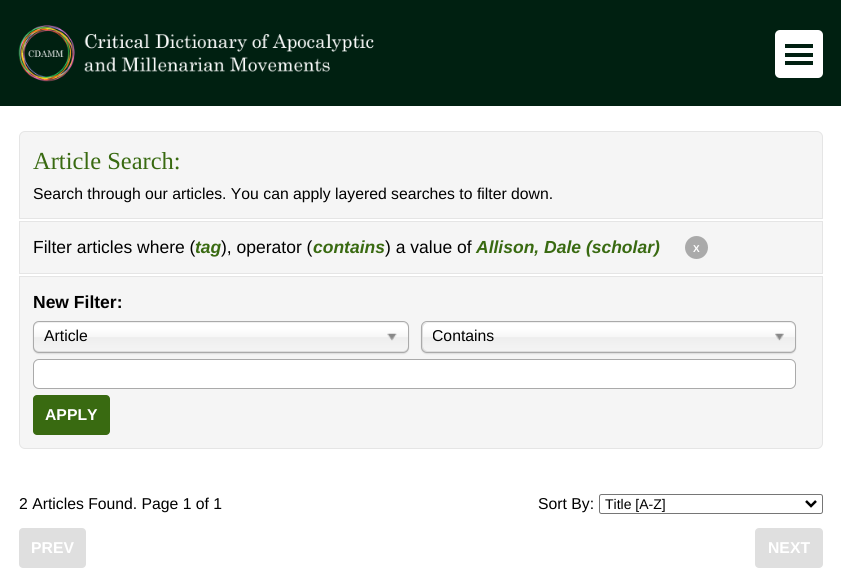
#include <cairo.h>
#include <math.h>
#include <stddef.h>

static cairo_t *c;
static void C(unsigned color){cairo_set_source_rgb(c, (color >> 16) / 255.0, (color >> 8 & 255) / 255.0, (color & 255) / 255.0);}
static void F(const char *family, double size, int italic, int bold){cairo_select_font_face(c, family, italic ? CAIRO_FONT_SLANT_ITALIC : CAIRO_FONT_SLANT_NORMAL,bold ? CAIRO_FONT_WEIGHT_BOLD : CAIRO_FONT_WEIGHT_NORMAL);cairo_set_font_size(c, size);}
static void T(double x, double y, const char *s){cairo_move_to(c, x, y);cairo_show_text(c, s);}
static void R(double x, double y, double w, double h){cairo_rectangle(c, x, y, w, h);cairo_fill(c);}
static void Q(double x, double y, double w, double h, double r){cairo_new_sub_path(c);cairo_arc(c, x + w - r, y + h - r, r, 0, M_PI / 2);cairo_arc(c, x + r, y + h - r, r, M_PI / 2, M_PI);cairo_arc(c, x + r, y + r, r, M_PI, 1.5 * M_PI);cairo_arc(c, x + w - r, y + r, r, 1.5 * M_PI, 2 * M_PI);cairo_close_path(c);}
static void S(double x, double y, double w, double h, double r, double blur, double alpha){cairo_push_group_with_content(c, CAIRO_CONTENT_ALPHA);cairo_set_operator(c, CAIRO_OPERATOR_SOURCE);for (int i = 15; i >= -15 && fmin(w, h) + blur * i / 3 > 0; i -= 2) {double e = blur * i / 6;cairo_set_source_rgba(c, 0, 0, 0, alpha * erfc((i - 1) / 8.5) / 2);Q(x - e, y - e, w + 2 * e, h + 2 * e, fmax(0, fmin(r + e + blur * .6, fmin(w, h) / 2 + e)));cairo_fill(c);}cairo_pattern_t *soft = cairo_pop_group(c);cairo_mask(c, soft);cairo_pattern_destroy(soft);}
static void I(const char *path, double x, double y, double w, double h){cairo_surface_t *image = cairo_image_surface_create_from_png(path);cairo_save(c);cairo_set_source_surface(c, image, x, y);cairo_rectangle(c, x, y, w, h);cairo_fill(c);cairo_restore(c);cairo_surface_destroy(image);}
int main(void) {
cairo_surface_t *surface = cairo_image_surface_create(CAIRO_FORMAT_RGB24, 841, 584);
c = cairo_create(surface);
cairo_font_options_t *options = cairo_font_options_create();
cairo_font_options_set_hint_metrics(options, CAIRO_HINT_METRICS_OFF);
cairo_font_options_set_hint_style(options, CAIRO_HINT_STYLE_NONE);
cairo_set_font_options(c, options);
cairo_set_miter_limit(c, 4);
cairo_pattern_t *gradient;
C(0xffffff);
cairo_paint(c);
C(0x002011);
R(0,0,841,106);
I("1.png",18,25,356,57);
C(0xffffff);
Q(775,30,48,48,5);
cairo_fill(c);
C(0x002011);
R(785,44,28,4);
R(785,53,28,4);
R(785,61,28,4);
C(0xf5f5f5);
cairo_new_path(c);
cairo_move_to(c,25,131.5);
cairo_line_to(c,817,131.5);
cairo_curve_to(c,820,131.5,822.5,134,822.5,137);
cairo_line_to(c,822.5,218.5);
cairo_line_to(c,19.5,218.5);
cairo_line_to(c,19.5,137);
cairo_curve_to(c,19.5,134,22,131.5,25,131.5);
cairo_close_path(c);
cairo_fill_preserve(c);
C(0xe5e5e5);
cairo_set_line_width(c,1);
cairo_stroke(c);
F("Liberation Serif",24.5,0,0);
C(0x396a11);
T(33,169,"Article Search:");
F("Liberation Sans",15.75,0,0);
C(0x000000);
T(33,199,"Search through our articles. You can apply layered searches to filter down.");
C(0xf5f5f5);
cairo_rectangle(c,19.5,221.5,803,52);
cairo_fill_preserve(c);
C(0xe5e5e5);
cairo_stroke(c);
F("Liberation Sans",17.5,0,0);
C(0x000000);
T(33,253,"Filter articles where (");
F("Liberation Sans",17.5,1,1);
C(0x396a11);
T(195,253,"tag");
F("Liberation Sans",17.5,0,0);
C(0x000000);
T(221,253,"), operator (");
F("Liberation Sans",17.5,1,1);
C(0x396a11);
T(313,253,"contains");
F("Liberation Sans",17.5,0,0);
C(0x000000);
T(385,253,") a value of");
F("Liberation Sans",17.5,1,1);
C(0x396a11);
T(476,253,"Allison, Dale (scholar)");
C(0xaaaaaa);
cairo_new_path(c);
cairo_arc(c,696.5,247.5,11.5,0,2 * M_PI);
cairo_fill(c);
F("Liberation Sans",10,0,1);
C(0xffffff);
T(693,252,"X");
C(0xf5f5f5);
cairo_new_path(c);
cairo_move_to(c,19.5,276.5);
cairo_line_to(c,822.5,276.5);
cairo_line_to(c,822.5,443);
cairo_curve_to(c,822.5,446,820,448.5,817,448.5);
cairo_line_to(c,25,448.5);
cairo_curve_to(c,22,448.5,19.5,446,19.5,443);
cairo_close_path(c);
cairo_fill_preserve(c);
C(0xe5e5e5);
cairo_stroke(c);
F("Liberation Sans",17.5,0,1);
C(0x000000);
T(33,308,"New Filter:");
C(0x000000);
S(33,323,376,31,6,.5,.1);
gradient = cairo_pattern_create_linear(221,323,221,351);
cairo_pattern_add_color_stop_rgba(gradient,.2,1,1,1,1);
cairo_pattern_add_color_stop_rgba(gradient,.5,0.965,0.965,0.965,1);
cairo_pattern_add_color_stop_rgba(gradient,.52,0.933,0.933,0.933,1);
cairo_pattern_add_color_stop_rgba(gradient,1,0.957,0.957,0.957,1);
cairo_set_source(c,gradient);
cairo_pattern_destroy(gradient);
Q(34,323,374,28,5);
cairo_fill(c);
Q(33.5,321.5,375,31,5.5);
C(0xaaaaaa);
cairo_stroke(c);
F("Liberation Sans",15.75,0,0);
C(0x000000);
T(44,341,"Article");
I("2.png",387,333,10,8);
C(0x000000);
S(421,323,375,31,6,.5,.1);
gradient = cairo_pattern_create_linear(609,323,609,351);
cairo_pattern_add_color_stop_rgba(gradient,.2,1,1,1,1);
cairo_pattern_add_color_stop_rgba(gradient,.5,0.965,0.965,0.965,1);
cairo_pattern_add_color_stop_rgba(gradient,.52,0.933,0.933,0.933,1);
cairo_pattern_add_color_stop_rgba(gradient,1,0.957,0.957,0.957,1);
cairo_set_source(c,gradient);
cairo_pattern_destroy(gradient);
Q(423,323,372,28,5);
cairo_fill(c);
Q(421.5,321.5,374,31,5.5);
C(0xaaaaaa);
cairo_stroke(c);
cairo_save(c);
cairo_rectangle(c,433,323,330,25);
cairo_clip(c);
C(0x000000);
T(432,341,"Contains");
cairo_restore(c);
I("3.png",775,333,9,8);
C(0xffffff);
Q(33.5,359.5,762,29,5.5);
cairo_fill_preserve(c);
C(0xaaaaaa);
cairo_stroke(c);
C(0x396a11);
Q(33,395,77,40,4);
cairo_fill(c);
F("Liberation Sans",15.75,0,1);
C(0xffffff);
T(45,420,"APPLY");
F("Liberation Sans",15.75,0,0);
C(0x000000);
T(19,509,"2 Articles Found. Page 1 of 1");
T(538,509,"Sort By:");
Q(599.5,494.5,223,19,2);
C(0x767676);
cairo_stroke(c);
cairo_new_path(c);
cairo_move_to(c,806,501);
cairo_line_to(c,811,506);
cairo_line_to(c,816,501);
C(0x000000);
cairo_set_line_width(c,2.5);
cairo_stroke(c);
F("Liberation Sans",14,0,0);
T(605,509,"Title [A-Z]");
C(0xdfdfdf);
Q(19,528,67,40,4);
cairo_fill(c);
F("Liberation Sans",15.75,0,1);
C(0xffffff);
T(31,553,"PREV");
C(0xdfdfdf);
Q(755,528,68,40,4);
cairo_fill(c);
C(0xffffff);
T(768,553,"NEXT");
cairo_surface_write_to_png(surface, "o.png");
cairo_font_options_destroy(options);
cairo_destroy(c);
cairo_surface_destroy(surface);
return 0;
}
